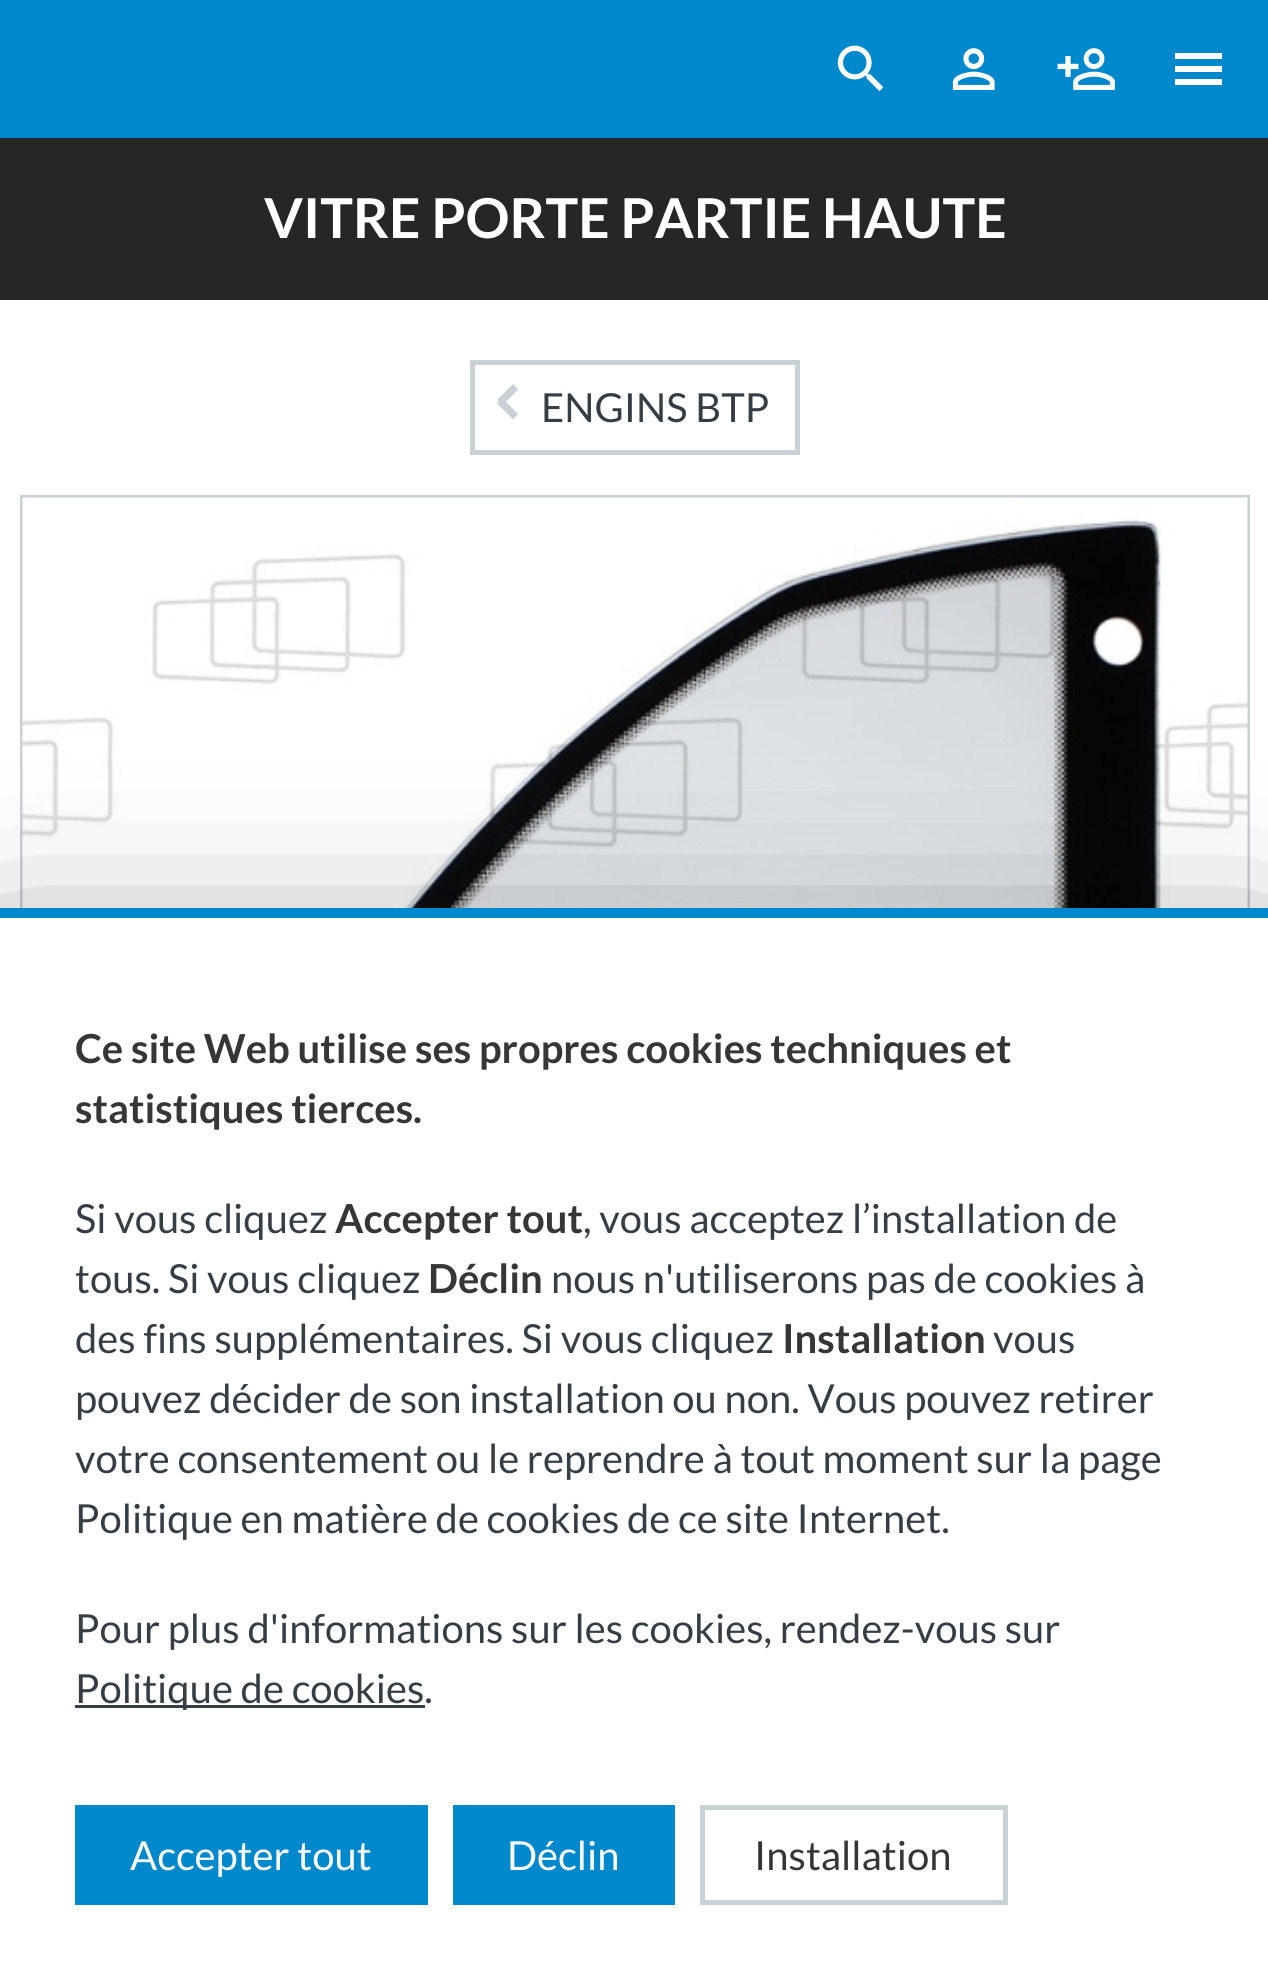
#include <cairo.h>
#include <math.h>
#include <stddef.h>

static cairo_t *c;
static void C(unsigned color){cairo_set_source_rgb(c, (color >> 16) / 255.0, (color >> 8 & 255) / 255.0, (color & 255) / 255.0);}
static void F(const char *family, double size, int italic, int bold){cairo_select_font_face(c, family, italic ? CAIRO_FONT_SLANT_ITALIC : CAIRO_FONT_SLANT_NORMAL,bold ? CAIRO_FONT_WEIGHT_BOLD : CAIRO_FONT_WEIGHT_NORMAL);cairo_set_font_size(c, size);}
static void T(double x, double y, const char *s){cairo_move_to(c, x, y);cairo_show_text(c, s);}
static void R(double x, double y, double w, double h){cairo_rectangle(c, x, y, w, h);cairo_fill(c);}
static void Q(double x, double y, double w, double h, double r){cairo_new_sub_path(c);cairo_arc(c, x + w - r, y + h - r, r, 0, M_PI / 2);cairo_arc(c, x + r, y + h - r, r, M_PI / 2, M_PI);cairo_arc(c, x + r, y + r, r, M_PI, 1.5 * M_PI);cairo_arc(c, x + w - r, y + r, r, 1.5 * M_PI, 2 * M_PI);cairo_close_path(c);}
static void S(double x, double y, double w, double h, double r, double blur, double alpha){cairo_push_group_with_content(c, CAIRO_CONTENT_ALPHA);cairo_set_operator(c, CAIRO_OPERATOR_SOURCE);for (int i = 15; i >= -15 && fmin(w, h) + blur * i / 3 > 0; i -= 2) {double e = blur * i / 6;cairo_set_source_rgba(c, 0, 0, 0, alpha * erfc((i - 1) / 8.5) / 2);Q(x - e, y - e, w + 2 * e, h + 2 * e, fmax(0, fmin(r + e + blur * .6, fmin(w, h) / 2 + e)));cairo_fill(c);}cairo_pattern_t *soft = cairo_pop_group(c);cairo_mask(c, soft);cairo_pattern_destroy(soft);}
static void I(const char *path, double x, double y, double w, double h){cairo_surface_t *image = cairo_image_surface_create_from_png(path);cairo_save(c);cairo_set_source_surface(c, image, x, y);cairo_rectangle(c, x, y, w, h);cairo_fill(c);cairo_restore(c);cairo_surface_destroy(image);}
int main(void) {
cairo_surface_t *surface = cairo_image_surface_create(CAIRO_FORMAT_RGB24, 1268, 1979);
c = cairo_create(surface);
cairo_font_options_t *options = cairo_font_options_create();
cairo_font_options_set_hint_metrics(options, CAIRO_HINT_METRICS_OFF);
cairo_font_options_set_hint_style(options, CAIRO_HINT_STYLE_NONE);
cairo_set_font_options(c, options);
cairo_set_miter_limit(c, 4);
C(0xffffff);
cairo_paint(c);
C(0x0088cc);
R(0,0,1268,138);
I("1.png",837,45,47,47);
I("2.png",952,48,43,42);
I("3.png",1057,48,58,42);
C(0xffffff);
cairo_new_path(c);
cairo_move_to(c,1175,53);
cairo_line_to(c,1222,53);
cairo_line_to(c,1222,59);
cairo_line_to(c,1175,59);
cairo_close_path(c);
cairo_move_to(c,1175,66);
cairo_line_to(c,1222,66);
cairo_line_to(c,1222,72);
cairo_line_to(c,1175,72);
cairo_close_path(c);
cairo_move_to(c,1175,79);
cairo_line_to(c,1222,79);
cairo_line_to(c,1222,85);
cairo_line_to(c,1175,85);
cairo_close_path(c);
cairo_fill(c);
C(0x262626);
R(0,138,1268,162);
F("Lato",55,0,1);
C(0xffffff);
T(264,238,"VITRE PORTE PARTIE HAUTE");
cairo_rectangle(c,472.5,362.5,325,90);
C(0xc7d1d6);
cairo_set_line_width(c,5);
cairo_stroke(c);
cairo_new_path(c);
cairo_move_to(c,497,400);
cairo_line_to(c,513,384);
cairo_line_to(c,518,389.5);
cairo_line_to(c,502.5,405.5);
cairo_close_path(c);
cairo_fill(c);
cairo_new_path(c);
cairo_move_to(c,497,403.5);
cairo_line_to(c,502.5,398.5);
cairo_line_to(c,518,414);
cairo_line_to(c,513,419.5);
cairo_close_path(c);
cairo_fill(c);
F("Lato",40,0,0);
C(0x363e45);
T(541,422,"ENGINS BTP");
cairo_rectangle(c,21.5,496.5,1227,1242);
C(0xc7d1d6);
cairo_set_line_width(c,3);
cairo_stroke(c);
I("4.png",22,497,1226,411);
C(0x000000);
S(0,995,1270,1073,0,94,.7);
C(0xffffff);
R(0,918,1268,1061);
C(0x0088cc);
R(0,908,1268,10);
F("Lato",40,0,1);
C(0x363636);
T(75,1063,"Ce site Web utilise ses propres cookies techniques et");
T(75,1123,"statistiques tierces.");
F("Lato",40,0,0);
C(0x363e45);
T(75,1233,"Si vous cliquez");
F("Lato",40,0,1);
C(0x363636);
T(335,1233,"Accepter tout");
F("Lato",40,0,0);
C(0x363e45);
T(583,1233,", vous acceptez l’installation de");
T(75,1293,"tous. Si vous cliquez");
F("Lato",40,0,1);
C(0x363636);
T(428,1293,"Déclin");
F("Lato",40,0,0);
C(0x363e45);
T(551,1293,"nous n'utiliserons pas de cookies à");
T(75,1353,"des fins supplémentaires. Si vous cliquez");
F("Lato",40,0,1);
C(0x363636);
T(782,1353,"Installation");
F("Lato",40,0,0);
C(0x363e45);
T(993,1353,"vous");
T(75,1413,"pouvez décider de son installation ou non. Vous pouvez retirer");
T(75,1473,"votre consentement ou le reprendre à tout moment sur la page");
T(75,1533,"Politique en matière de cookies de ce site Internet.");
T(75,1643,"Pour plus d'informations sur les cookies, rendez-vous sur");
R(75,1705,350,3);
T(75,1703,"Politique de cookies.");
C(0x0088cc);
R(75,1805,353,100);
C(0xffffff);
T(130,1870,"Accepter tout");
C(0x0088cc);
R(453,1805,222,100);
C(0xffffff);
T(507,1870,"Déclin");
cairo_rectangle(c,702.5,1807.5,303,95);
C(0xc7d1d6);
cairo_set_line_width(c,5);
cairo_stroke(c);
C(0x363636);
T(754,1870,"Installation");
cairo_surface_write_to_png(surface, "o.png");
cairo_font_options_destroy(options);
cairo_destroy(c);
cairo_surface_destroy(surface);
return 0;
}
